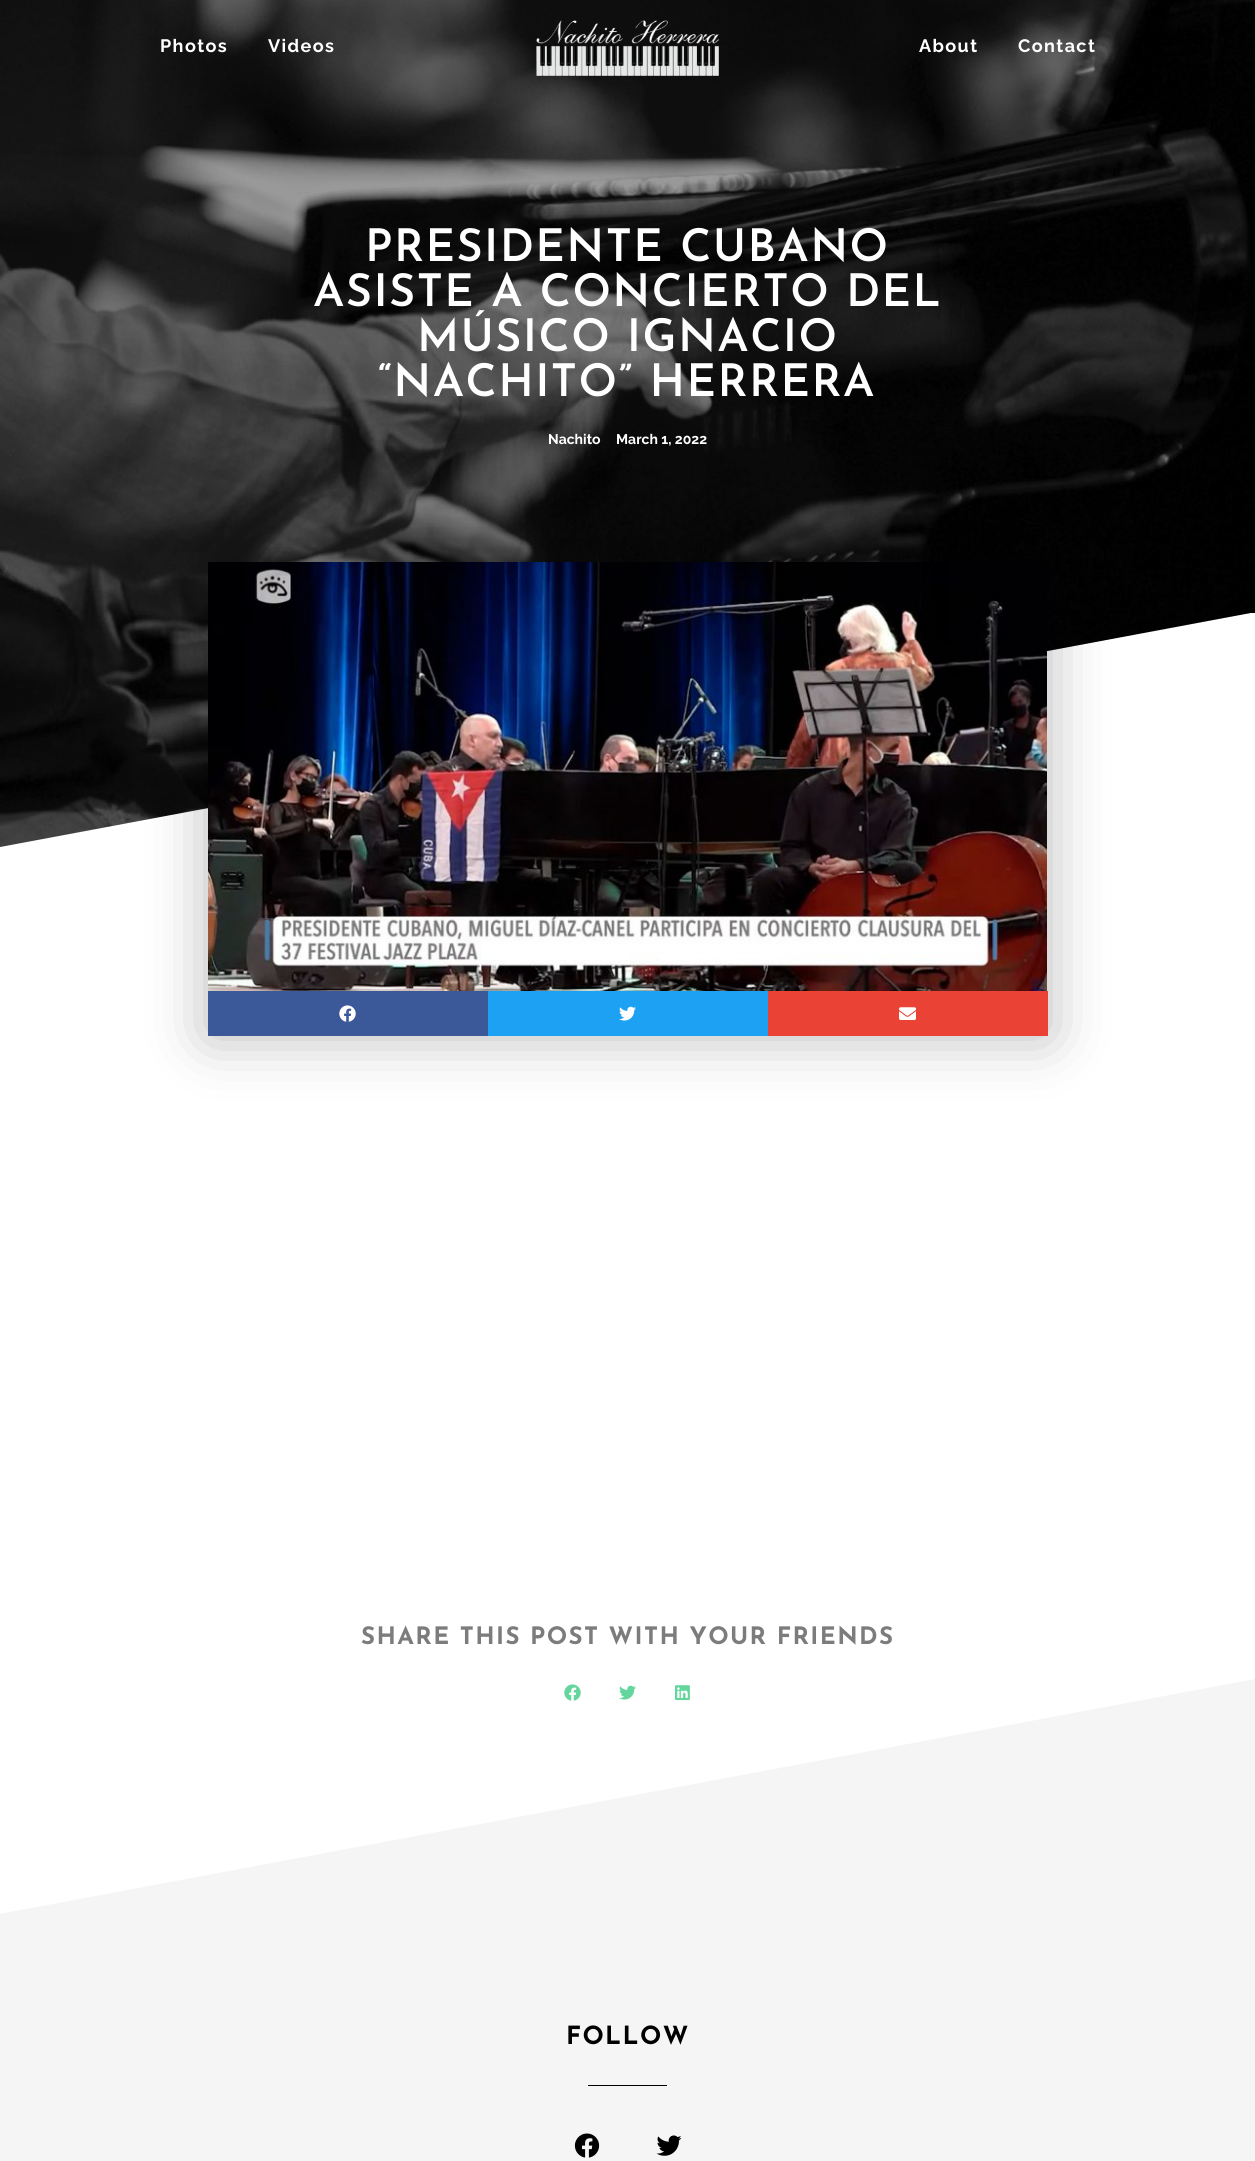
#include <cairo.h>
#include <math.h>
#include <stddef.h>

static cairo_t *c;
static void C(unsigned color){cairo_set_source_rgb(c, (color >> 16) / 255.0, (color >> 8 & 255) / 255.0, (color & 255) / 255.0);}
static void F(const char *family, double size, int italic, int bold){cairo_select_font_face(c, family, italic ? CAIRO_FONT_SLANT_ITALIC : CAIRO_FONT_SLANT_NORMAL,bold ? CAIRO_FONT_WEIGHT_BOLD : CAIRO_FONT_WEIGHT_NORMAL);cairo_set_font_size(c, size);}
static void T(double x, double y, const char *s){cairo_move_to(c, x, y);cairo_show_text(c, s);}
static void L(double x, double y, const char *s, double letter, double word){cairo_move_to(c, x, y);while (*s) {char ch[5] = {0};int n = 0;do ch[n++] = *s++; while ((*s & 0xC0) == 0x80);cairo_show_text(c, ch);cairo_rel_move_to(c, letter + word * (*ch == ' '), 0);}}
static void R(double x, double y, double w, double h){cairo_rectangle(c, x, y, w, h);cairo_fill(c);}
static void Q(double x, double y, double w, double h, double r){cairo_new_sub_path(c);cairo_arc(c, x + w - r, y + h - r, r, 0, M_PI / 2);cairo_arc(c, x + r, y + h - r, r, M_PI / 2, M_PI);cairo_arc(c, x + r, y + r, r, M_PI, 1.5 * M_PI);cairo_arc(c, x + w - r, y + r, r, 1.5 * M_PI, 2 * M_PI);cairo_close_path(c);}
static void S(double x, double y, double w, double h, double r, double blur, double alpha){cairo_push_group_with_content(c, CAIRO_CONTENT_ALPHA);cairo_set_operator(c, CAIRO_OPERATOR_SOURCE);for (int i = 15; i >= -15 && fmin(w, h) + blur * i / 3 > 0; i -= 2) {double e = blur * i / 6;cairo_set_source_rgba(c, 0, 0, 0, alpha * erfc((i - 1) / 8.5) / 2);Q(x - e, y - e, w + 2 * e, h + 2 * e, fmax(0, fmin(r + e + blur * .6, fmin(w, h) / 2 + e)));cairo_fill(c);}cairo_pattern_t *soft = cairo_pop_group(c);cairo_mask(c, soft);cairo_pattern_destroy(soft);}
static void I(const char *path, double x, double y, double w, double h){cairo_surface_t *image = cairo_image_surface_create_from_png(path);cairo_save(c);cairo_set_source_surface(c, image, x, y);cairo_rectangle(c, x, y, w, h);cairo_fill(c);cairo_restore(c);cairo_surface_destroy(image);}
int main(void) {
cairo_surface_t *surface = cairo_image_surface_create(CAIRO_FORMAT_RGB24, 1255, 2161);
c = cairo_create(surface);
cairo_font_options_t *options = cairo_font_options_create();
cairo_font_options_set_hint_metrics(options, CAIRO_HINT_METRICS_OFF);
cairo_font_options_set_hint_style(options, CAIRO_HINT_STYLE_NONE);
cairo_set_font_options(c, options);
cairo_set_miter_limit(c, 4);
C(0xffffff);
cairo_paint(c);
I("2.png",0,0,1255,847);
F("Raleway",18,0,1);
C(0xffffff);
L(160,52,"Photos",1.4,0);
L(268,52,"Videos",1.4,0);
I("1.png",536,20,183,56);
L(919,52,"About",1.4,0);
L(1018,52,"Contact",1.4,0);
F("Josefin Sans SemiBold",45,0,0);
L(365,261,"PRESIDENTE CUBANO",1.4,0);
L(313,306,"ASISTE A CONCIERTO DEL",1.4,0);
L(417,351,"MÚSICO IGNACIO",1.4,0);
L(378,396,"“NACHITO” HERRERA",1.4,0);
F("Raleway",14,0,1);
T(548,444,"Nachito");
T(616,444,"March 1, 2022");
cairo_save(c);
cairo_rectangle(c,0,613,1255,250);
cairo_clip(c);
cairo_new_path(c);
cairo_move_to(c,0,847);
cairo_line_to(c,0,862);
cairo_line_to(c,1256,862);
cairo_line_to(c,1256,612);
cairo_close_path(c);
cairo_fill(c);
cairo_restore(c);
C(0x000000);
S(208,562,840,474,0,30,.28);
I("3.png",208,562,839,429);
C(0x3b5998);
R(208,991,280,45);
I("4.png",339,1005,17,17);
C(0x1da1f2);
R(488,991,280,45);
I("5.png",619,1006,17,15);
C(0xea4335);
R(768,991,280,45);
I("6.png",899,1007,17,13);
F("Josefin Sans",24,0,1);
C(0x7c7c7c);
L(361,1644,"SHARE THIS POST WITH YOUR FRIENDS",1.4,0);
C(0xf5f5f5);
R(0,1679,1255,482);
C(0xffffff);
cairo_new_path(c);
cairo_move_to(c,1255,1679);
cairo_line_to(c,1255,1664);
cairo_line_to(c,-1,1664);
cairo_line_to(c,-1,1914);
cairo_close_path(c);
cairo_fill(c);
I("7.png",564,1684,17,17);
I("8.png",619,1685,17,15);
I("9.png",675,1685,15,16);
F("Josefin Sans",25,0,1);
C(0x000000);
L(566,2044,"FOLLOW",1.4,0);
R(588,2085,79,1);
I("10.png",574,2133,26,25);
I("11.png",656,2135,26,21);
cairo_surface_write_to_png(surface, "o.png");
cairo_font_options_destroy(options);
cairo_destroy(c);
cairo_surface_destroy(surface);
return 0;
}
